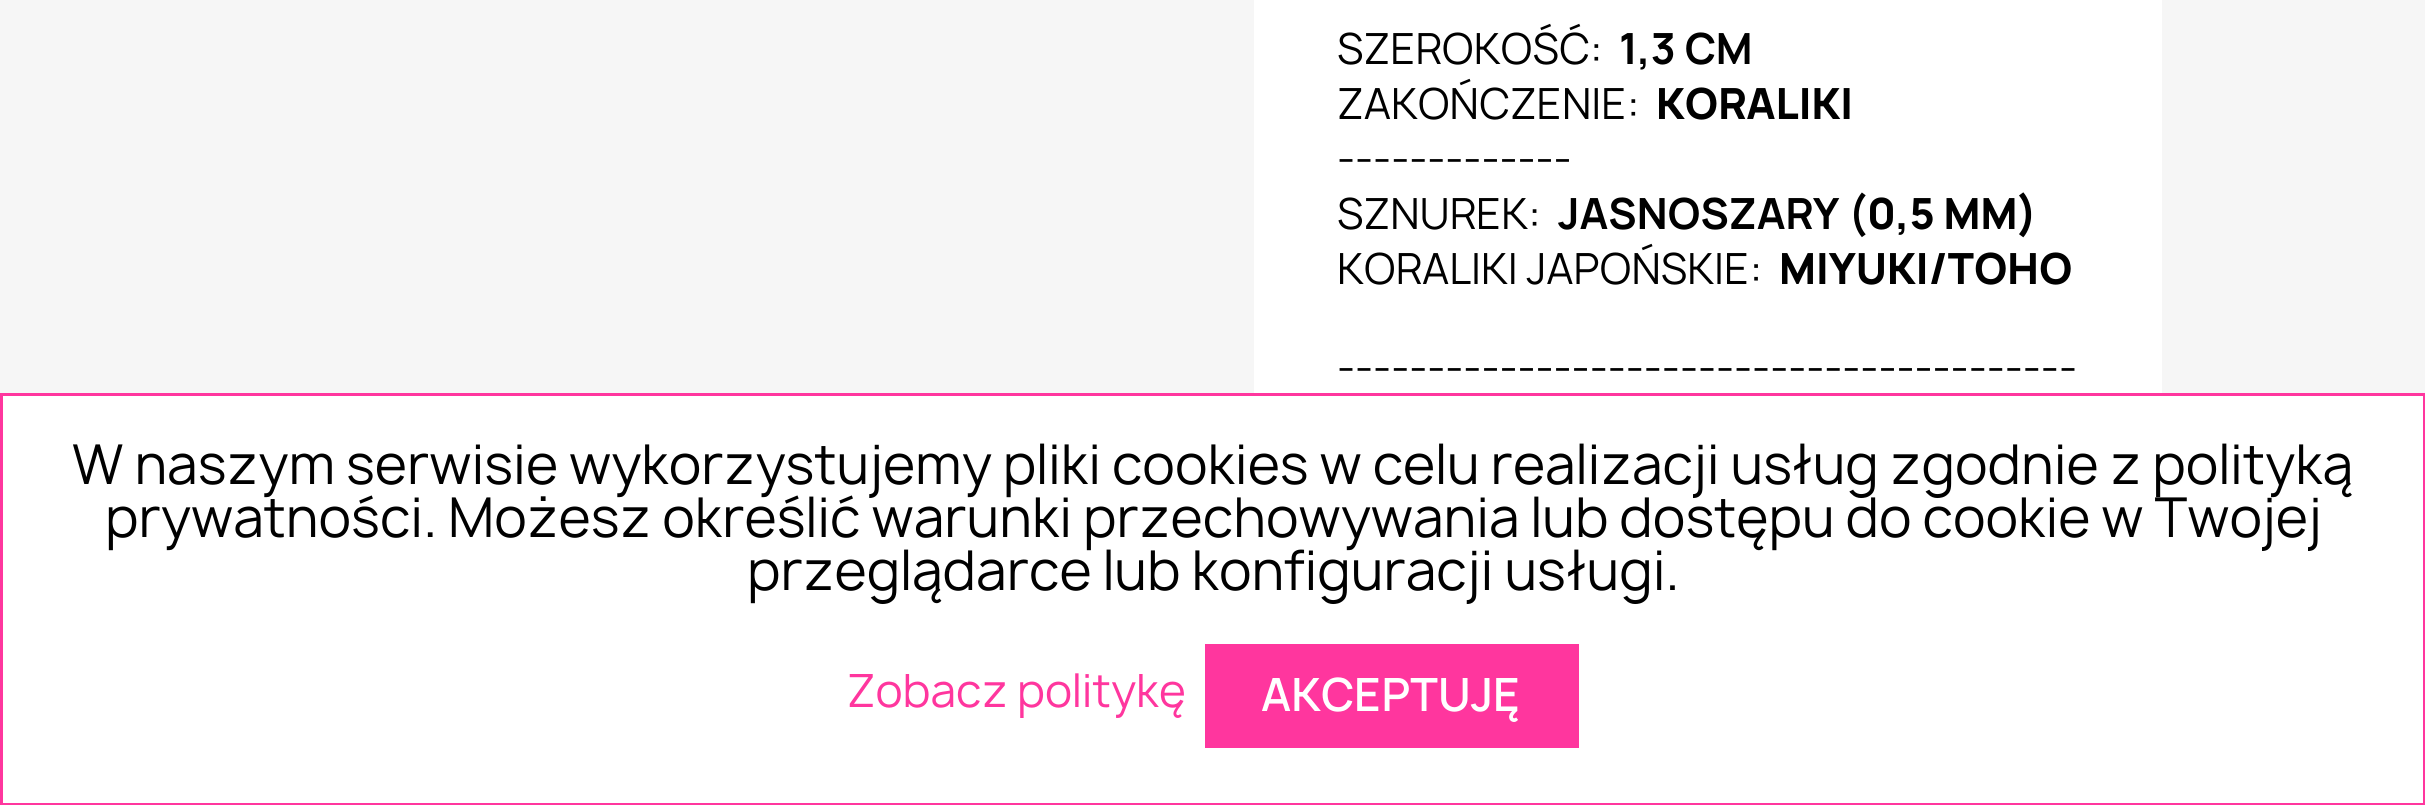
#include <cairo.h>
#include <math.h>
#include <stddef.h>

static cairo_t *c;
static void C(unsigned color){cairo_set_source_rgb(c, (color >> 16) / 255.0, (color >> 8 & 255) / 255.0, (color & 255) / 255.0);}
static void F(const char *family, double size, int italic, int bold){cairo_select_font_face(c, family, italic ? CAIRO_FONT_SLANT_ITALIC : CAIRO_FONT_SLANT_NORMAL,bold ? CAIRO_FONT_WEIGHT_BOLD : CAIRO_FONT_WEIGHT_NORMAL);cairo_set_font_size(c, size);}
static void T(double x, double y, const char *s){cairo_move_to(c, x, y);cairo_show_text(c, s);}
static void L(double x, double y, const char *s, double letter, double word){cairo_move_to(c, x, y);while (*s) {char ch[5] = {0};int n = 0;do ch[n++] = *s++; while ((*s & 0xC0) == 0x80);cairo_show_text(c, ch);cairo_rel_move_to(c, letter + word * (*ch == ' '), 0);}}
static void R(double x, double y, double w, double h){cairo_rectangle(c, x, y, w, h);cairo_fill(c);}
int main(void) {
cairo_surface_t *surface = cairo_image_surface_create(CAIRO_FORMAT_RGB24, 2425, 805);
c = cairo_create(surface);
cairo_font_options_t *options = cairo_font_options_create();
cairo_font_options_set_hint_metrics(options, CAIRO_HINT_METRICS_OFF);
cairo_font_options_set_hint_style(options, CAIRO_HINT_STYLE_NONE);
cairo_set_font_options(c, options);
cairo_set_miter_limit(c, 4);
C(0xf6f6f6);
cairo_paint(c);
C(0xffffff);
R(1254,0,908,393);
F("Manrope",41.25,0,0);
C(0x000000);
T(1337,64,"SZEROKOŚĆ:");
F("Manrope",41.25,0,1);
T(1619,64,"1,3 CM");
F("Manrope",41.25,0,0);
T(1337,119,"ZAKOŃCZENIE:");
F("Manrope ExtraBold",41.25,0,0);
T(1656,119,"KORALIKI");
F("Manrope",41.25,0,0);
T(1337,174,"-------------");
T(1337,229,"SZNUREK:");
F("Manrope",41.25,0,1);
T(1558,229,"JASNOSZARY (");
F("Manrope ExtraBold",41.25,0,0);
T(1867,229,"0,5 MM)");
F("Manrope",41.25,0,0);
T(1337,284,"KORALIKI JAPOŃSKIE:");
F("Manrope ExtraBold",41.25,0,0);
T(1779,284,"MIYUKI/TOHO");
F("Manrope",41.25,0,0);
T(1337,383,"-----------------------------------------");
C(0xffffff);
cairo_rectangle(c,1.5,394.5,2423,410);
cairo_fill_preserve(c);
C(0xff369e);
cairo_set_line_width(c,3);
cairo_stroke(c);
F("Manrope",52.8,0,0);
C(0x000000);
L(72,484,"W naszym serwisie wykorzystujemy pliki cookies w celu realizacji usług zgodnie z polityką",0,-.1);
L(105,537,"prywatności. Możesz określić warunki przechowywania lub dostępu do cookie w Twojej",0,-.1);
T(747,590,"przeglądarce lub konfiguracji usługi.");
F("Manrope",44,0,0);
C(0xff369e);
T(847,707,"Zobacz politykę");
R(1205,644,374,104);
F("Manrope SemiBold",44,0,0);
C(0xffffff);
T(1261,711,"AKCEPTUJĘ");
cairo_surface_write_to_png(surface, "o.png");
cairo_font_options_destroy(options);
cairo_destroy(c);
cairo_surface_destroy(surface);
return 0;
}
